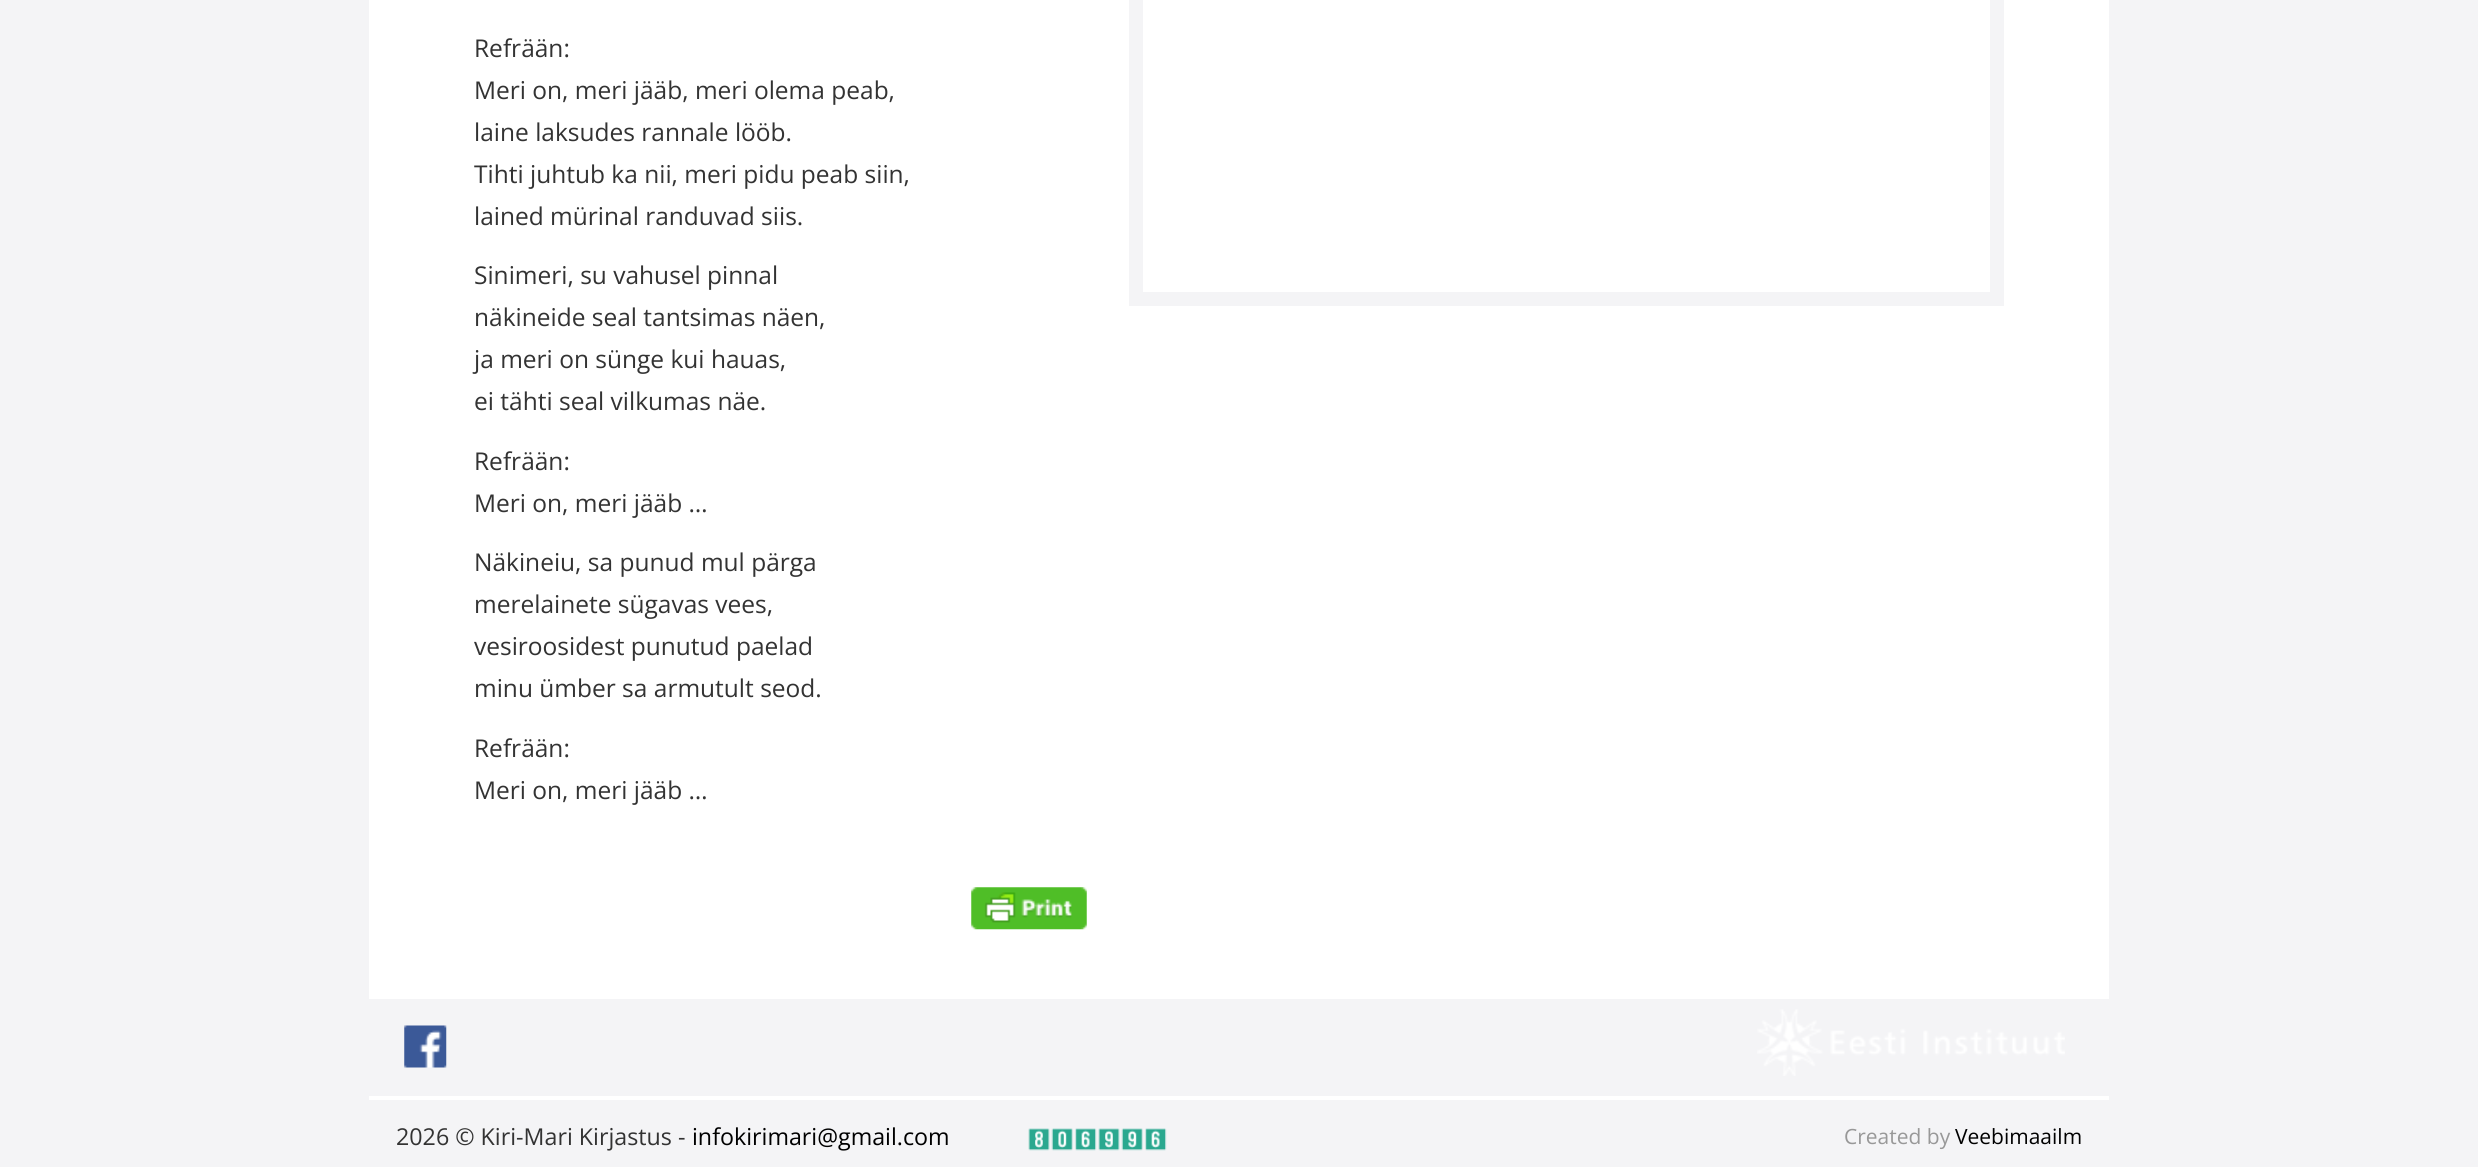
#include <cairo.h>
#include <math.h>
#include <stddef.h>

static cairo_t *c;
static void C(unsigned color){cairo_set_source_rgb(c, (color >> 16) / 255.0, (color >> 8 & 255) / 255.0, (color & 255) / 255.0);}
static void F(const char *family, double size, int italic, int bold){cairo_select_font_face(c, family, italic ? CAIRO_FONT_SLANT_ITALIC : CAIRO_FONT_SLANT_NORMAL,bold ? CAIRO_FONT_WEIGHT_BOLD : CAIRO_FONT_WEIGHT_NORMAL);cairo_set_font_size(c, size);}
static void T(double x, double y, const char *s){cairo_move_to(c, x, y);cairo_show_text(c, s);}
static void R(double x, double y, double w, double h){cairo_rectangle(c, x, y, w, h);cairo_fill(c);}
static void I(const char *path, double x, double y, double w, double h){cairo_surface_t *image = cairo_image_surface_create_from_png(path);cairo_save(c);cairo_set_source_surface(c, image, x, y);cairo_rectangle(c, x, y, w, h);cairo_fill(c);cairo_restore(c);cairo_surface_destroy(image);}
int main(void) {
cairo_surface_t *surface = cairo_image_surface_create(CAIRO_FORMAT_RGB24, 2478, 1167);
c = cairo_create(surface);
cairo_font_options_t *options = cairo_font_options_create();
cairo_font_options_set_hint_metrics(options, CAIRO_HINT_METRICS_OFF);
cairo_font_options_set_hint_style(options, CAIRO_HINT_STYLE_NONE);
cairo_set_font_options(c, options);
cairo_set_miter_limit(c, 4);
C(0xf4f4f6);
cairo_paint(c);
C(0xffffff);
R(369,0,1740,999);
F("Open Sans",24.5,0,0);
C(0x333333);
T(474,57,"Refrään:");
T(474,99,"Meri on, meri jääb, meri olema peab,");
T(474,141,"laine laksudes rannale lööb.");
T(474,183,"Tihti juhtub ka nii, meri pidu peab siin,");
T(474,225,"lained mürinal randuvad siis.");
T(474,284,"Sinimeri, su vahusel pinnal");
T(474,326,"näkineide seal tantsimas näen,");
T(474,368,"ja meri on sünge kui hauas,");
T(474,410,"ei tähti seal vilkumas näe.");
T(474,470,"Refrään:");
T(474,512,"Meri on, meri jääb …");
T(474,571,"Näkineiu, sa punud mul pärga");
T(474,613,"merelainete sügavas vees,");
T(474,655,"vesiroosidest punutud paelad");
T(474,697,"minu ümber sa armutult seod.");
T(474,757,"Refrään:");
T(474,799,"Meri on, meri jääb …");
I("1.png",971,887,116,43);
cairo_rectangle(c,1136,-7,861,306);
C(0xf4f4f6);
cairo_set_line_width(c,14);
cairo_stroke(c);
I("2.png",404,1025,43,43);
I("3.png",1757,1009,308,67);
C(0xffffff);
R(369,1096,1740,4);
F("Open Sans",23.25,0,0);
C(0x333333);
T(396,1145,"2026 © Kiri-Mari Kirjastus -");
C(0x000000);
T(692,1145,"infokirimari@gmail.com");
I("4.png",1028,1128,139,23);
F("Open Sans",21,0,0);
C(0x989898);
T(1844,1144,"Created by");
C(0x000000);
T(1955,1144,"Veebimaailm");
cairo_surface_write_to_png(surface, "o.png");
cairo_font_options_destroy(options);
cairo_destroy(c);
cairo_surface_destroy(surface);
return 0;
}
